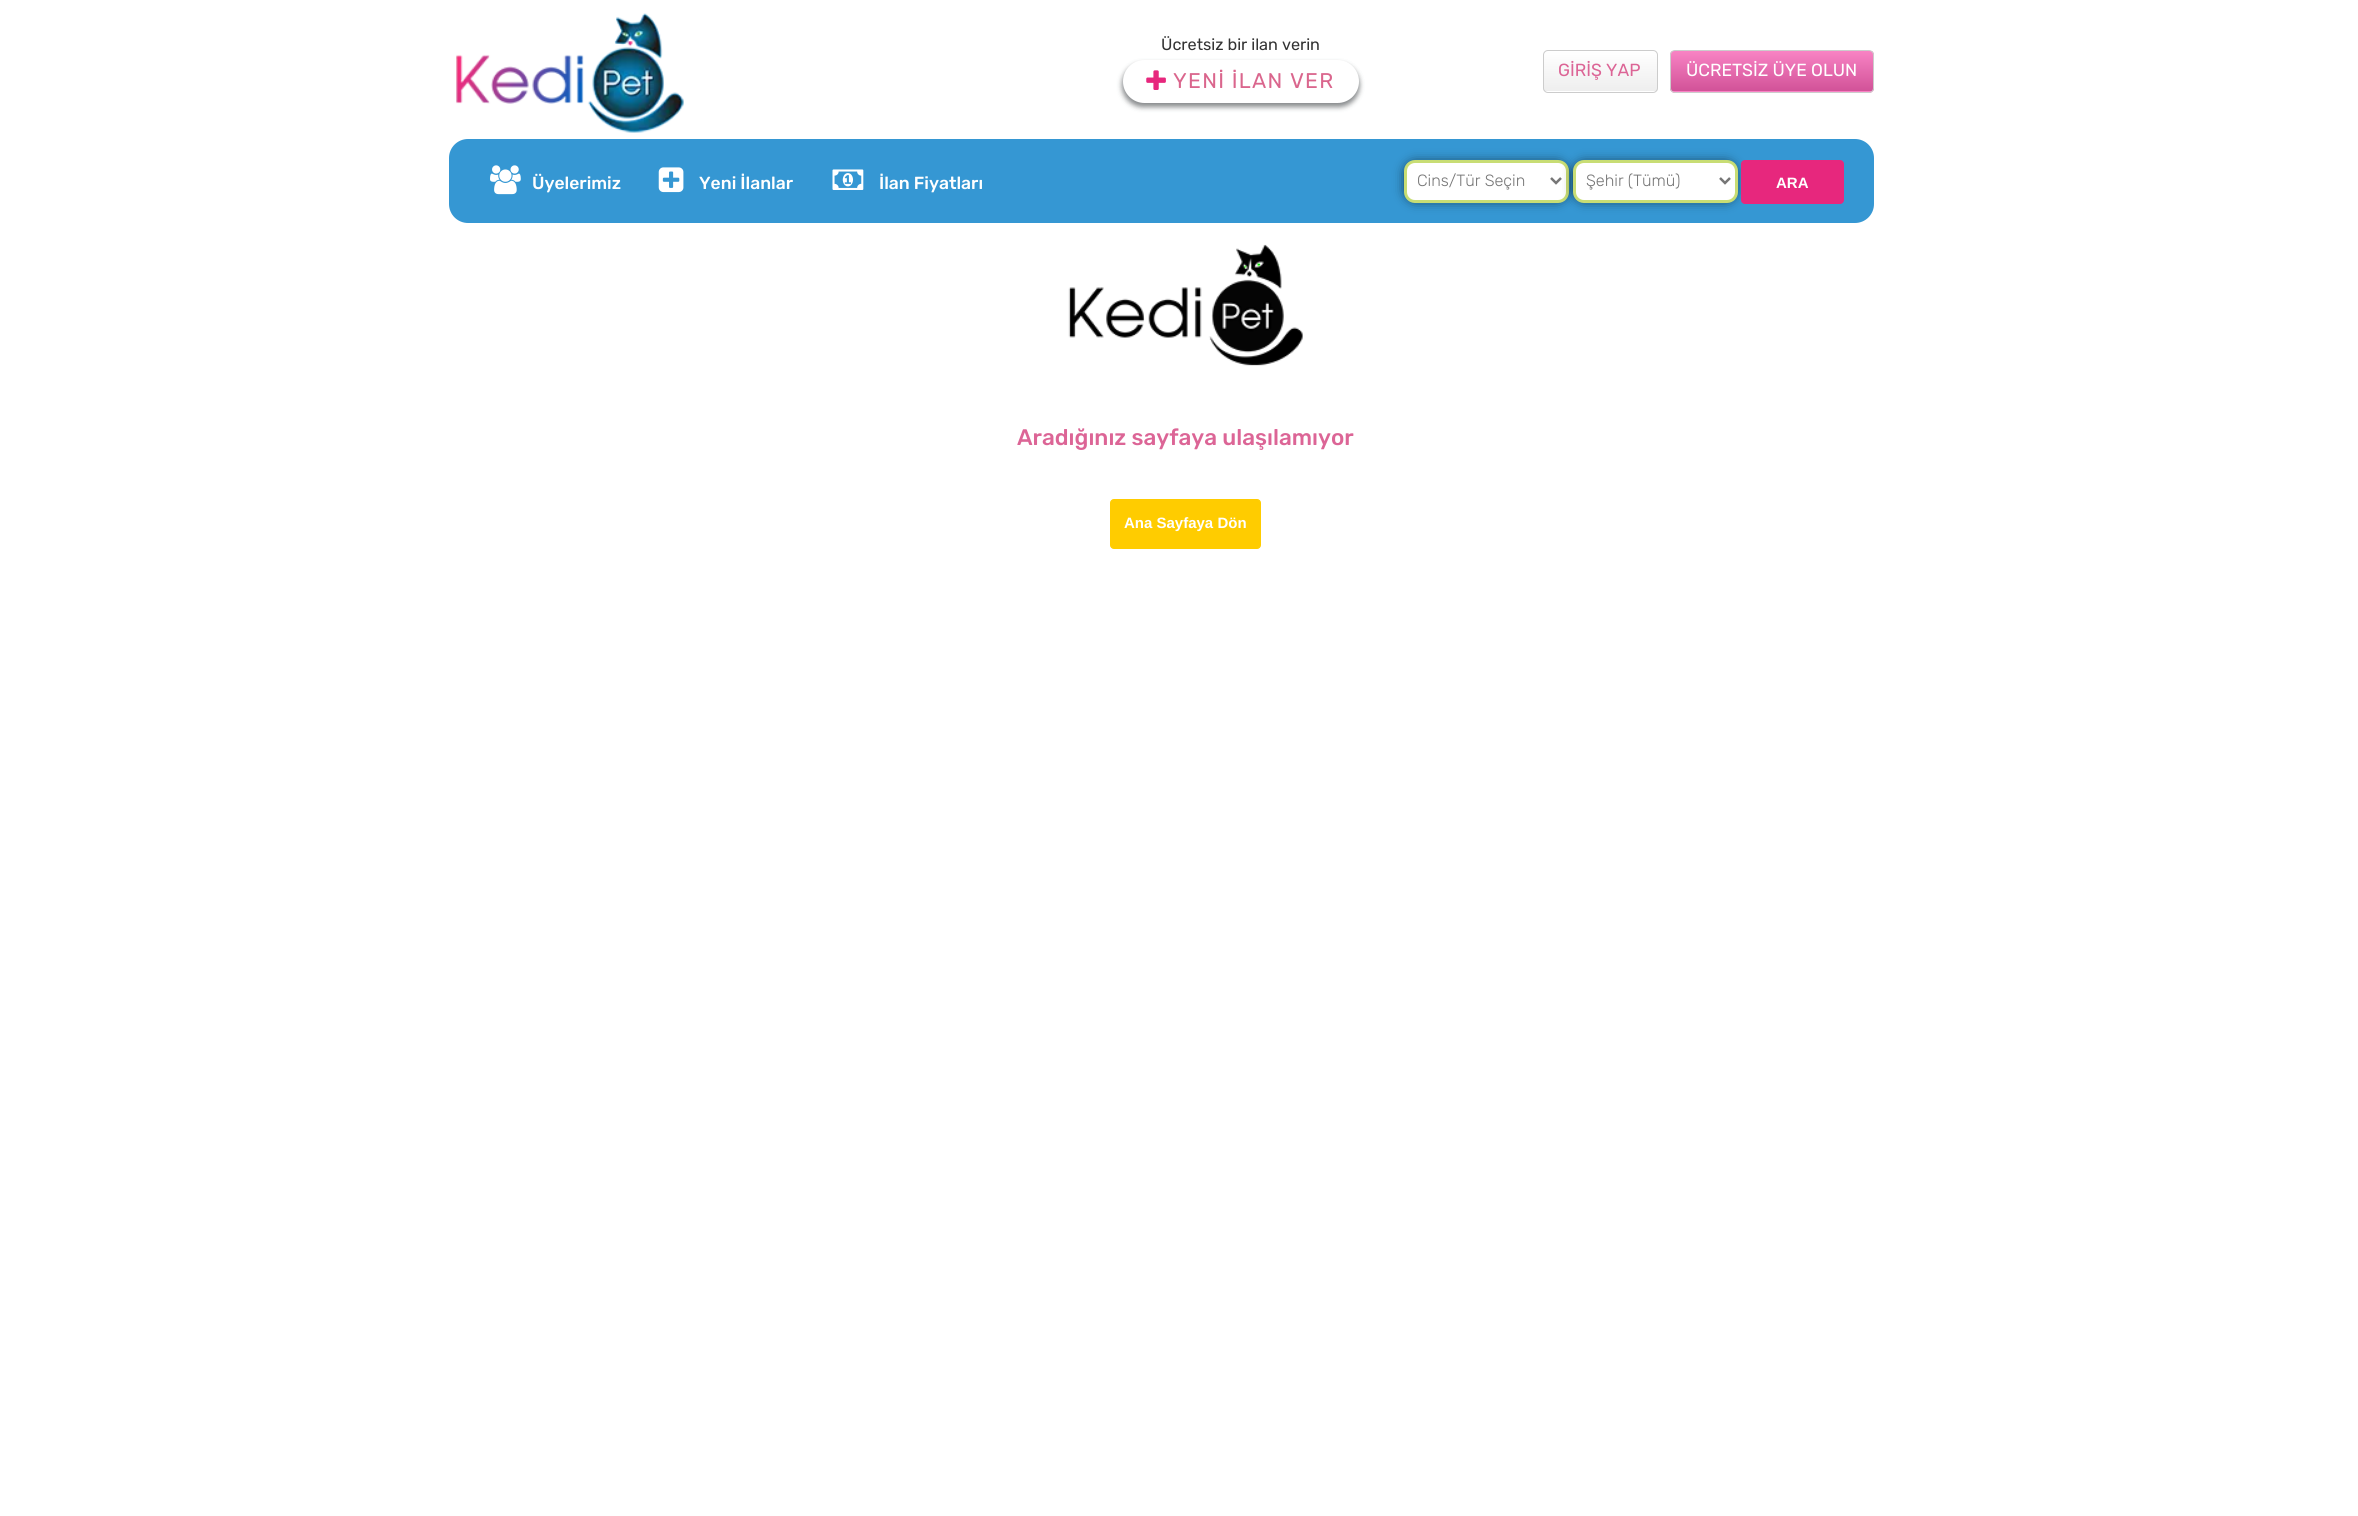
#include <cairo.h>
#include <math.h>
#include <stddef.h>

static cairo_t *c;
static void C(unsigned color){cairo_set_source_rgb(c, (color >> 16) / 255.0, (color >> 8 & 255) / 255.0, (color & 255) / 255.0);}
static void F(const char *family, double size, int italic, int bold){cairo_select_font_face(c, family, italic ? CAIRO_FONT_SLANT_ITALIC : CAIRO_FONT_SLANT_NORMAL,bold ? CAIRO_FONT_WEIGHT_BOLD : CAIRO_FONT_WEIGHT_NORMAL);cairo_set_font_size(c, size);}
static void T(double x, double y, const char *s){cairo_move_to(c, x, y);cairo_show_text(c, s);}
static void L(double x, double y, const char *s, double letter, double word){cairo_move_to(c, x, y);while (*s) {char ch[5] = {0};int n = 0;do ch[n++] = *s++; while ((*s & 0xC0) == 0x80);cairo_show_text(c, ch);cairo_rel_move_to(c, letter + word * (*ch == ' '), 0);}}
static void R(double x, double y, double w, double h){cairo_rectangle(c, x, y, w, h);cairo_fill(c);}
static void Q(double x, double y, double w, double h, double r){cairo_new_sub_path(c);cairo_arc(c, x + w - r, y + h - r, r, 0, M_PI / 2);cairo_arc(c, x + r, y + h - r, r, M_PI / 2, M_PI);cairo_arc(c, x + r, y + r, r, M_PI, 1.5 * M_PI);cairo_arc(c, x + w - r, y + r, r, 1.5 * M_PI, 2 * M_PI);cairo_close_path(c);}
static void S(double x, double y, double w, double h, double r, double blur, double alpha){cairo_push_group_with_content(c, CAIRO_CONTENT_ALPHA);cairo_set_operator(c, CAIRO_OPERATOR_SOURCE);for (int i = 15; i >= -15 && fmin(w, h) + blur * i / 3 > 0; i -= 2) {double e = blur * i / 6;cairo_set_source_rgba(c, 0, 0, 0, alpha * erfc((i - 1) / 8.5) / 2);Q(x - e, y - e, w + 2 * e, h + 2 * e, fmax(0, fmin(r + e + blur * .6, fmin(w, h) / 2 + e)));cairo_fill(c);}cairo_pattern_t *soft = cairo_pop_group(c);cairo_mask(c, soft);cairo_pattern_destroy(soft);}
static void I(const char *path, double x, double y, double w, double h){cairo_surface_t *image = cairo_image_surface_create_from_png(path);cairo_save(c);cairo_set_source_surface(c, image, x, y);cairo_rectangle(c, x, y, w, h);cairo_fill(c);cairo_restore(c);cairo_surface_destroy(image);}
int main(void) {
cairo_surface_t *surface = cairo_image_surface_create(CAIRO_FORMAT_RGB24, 2358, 1516);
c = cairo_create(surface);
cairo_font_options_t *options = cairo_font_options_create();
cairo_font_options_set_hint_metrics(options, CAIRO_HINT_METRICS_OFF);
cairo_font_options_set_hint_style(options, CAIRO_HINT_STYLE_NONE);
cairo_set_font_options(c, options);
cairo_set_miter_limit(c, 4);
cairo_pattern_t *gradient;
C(0xffffff);
cairo_paint(c);
I("1.png",456,13,228,120);
F("Rubik",16.25,0,0);
C(0x333333);
T(1161,50,"Ücretsiz bir ilan verin");
C(0x3c4043);
S(1121,63,239,45,22.5,2.5,.25);
S(1123,64,236,42,21,2.5,.5);
C(0xffffff);
Q(1123,60,236,43,21.5);
cairo_fill(c);
I("2.png",1146,70,20,20);
F("Rubik",21.25,0,0);
C(0xda668d);
L(1173,88,"YENİ İLAN VER",1.25,0);
cairo_save(c);
Q(1543,50,115,43,5);
cairo_clip(c);
gradient = cairo_pattern_create_linear(1600,51,1600,91);
cairo_pattern_add_color_stop_rgba(gradient,0,1,1,1,1);
cairo_pattern_add_color_stop_rgba(gradient,1,0.933,0.933,0.933,1);
cairo_set_source(c,gradient);
cairo_pattern_destroy(gradient);
R(1543,51,115,40);
cairo_restore(c);
Q(1543.5,50.5,114,42,4.5);
C(0xcccccc);
cairo_set_line_width(c,1);
cairo_stroke(c);
F("Rubik",17.5,0,0);
C(0xdc6596);
T(1558,76,"GİRİŞ YAP");
cairo_save(c);
Q(1670,50,204,43,5);
cairo_clip(c);
gradient = cairo_pattern_create_linear(1772,91,1772,51);
cairo_pattern_add_color_stop_rgba(gradient,0,0.82,0.322,0.596,1);
cairo_pattern_add_color_stop_rgba(gradient,1,0.976,0.514,0.769,1);
cairo_set_source(c,gradient);
cairo_pattern_destroy(gradient);
R(1670,51,204,40);
gradient = cairo_pattern_create_linear(1772,131,1772,91);
cairo_pattern_add_color_stop_rgba(gradient,0,0.82,0.322,0.596,1);
cairo_pattern_add_color_stop_rgba(gradient,1,0.976,0.514,0.769,1);
cairo_set_source(c,gradient);
cairo_pattern_destroy(gradient);
R(1670,91,204,2);
cairo_restore(c);
Q(1670.5,50.5,203,42,4.5);
C(0xcccccc);
cairo_stroke(c);
C(0xffffff);
T(1686,76,"ÜCRETSİZ ÜYE OLUN");
C(0x3597d3);
Q(449,139,1425,84,19);
cairo_fill(c);
I("3.png",490,165,31,30);
F("Rubik Medium",17.5,0,0);
C(0xffffff);
T(532,189,"Üyelerimiz");
I("4.png",658,167,26,26);
T(699,189,"Yeni İlanlar");
I("5.png",832,169,32,21);
T(879,189,"İlan Fiyatları");
C(0x000000);
S(1406,163,160,37,9,6,.75);
C(0xffffff);
Q(1405.5,161.5,162,40,9.5);
cairo_fill_preserve(c);
C(0xc8dd74);
cairo_set_line_width(c,3);
cairo_stroke(c);
cairo_new_path(c);
cairo_move_to(c,1551,178);
cairo_line_to(c,1556,183);
cairo_line_to(c,1561,178);
C(0x767676);
cairo_set_line_width(c,2.5);
cairo_stroke(c);
F("Rubik Light",16.25,0,0);
T(1417,186,"Cins/Tür Seçin");
C(0x000000);
S(1575,163,160,37,9,6,.75);
C(0xffffff);
Q(1574.5,161.5,162,40,9.5);
cairo_fill_preserve(c);
C(0xc8dd74);
cairo_set_line_width(c,3);
cairo_stroke(c);
cairo_new_path(c);
cairo_move_to(c,1720,178);
cairo_line_to(c,1725,183);
cairo_line_to(c,1730,178);
C(0x767676);
cairo_set_line_width(c,2.5);
cairo_stroke(c);
T(1586,186,"Şehir (Tümü)");
C(0xe7277d);
Q(1741,160,103,44,4);
cairo_fill(c);
F("Liberation Sans",15,0,1);
C(0xffffff);
T(1776,188,"ARA");
I("6.png",1068,244,235,122);
F("Rubik Medium",22.5,0,0);
C(0xdc6596);
T(1017,445,"Aradığınız sayfaya ulaşılamıyor");
C(0xffcc00);
Q(1110.5,499.5,150,49,3.5);
cairo_fill_preserve(c);
cairo_set_line_width(c,1);
cairo_stroke(c);
F("Liberation Sans",15,0,1);
C(0xffffff);
T(1124,528,"Ana Sayfaya Dön");
cairo_surface_write_to_png(surface, "o.png");
cairo_font_options_destroy(options);
cairo_destroy(c);
cairo_surface_destroy(surface);
return 0;
}
